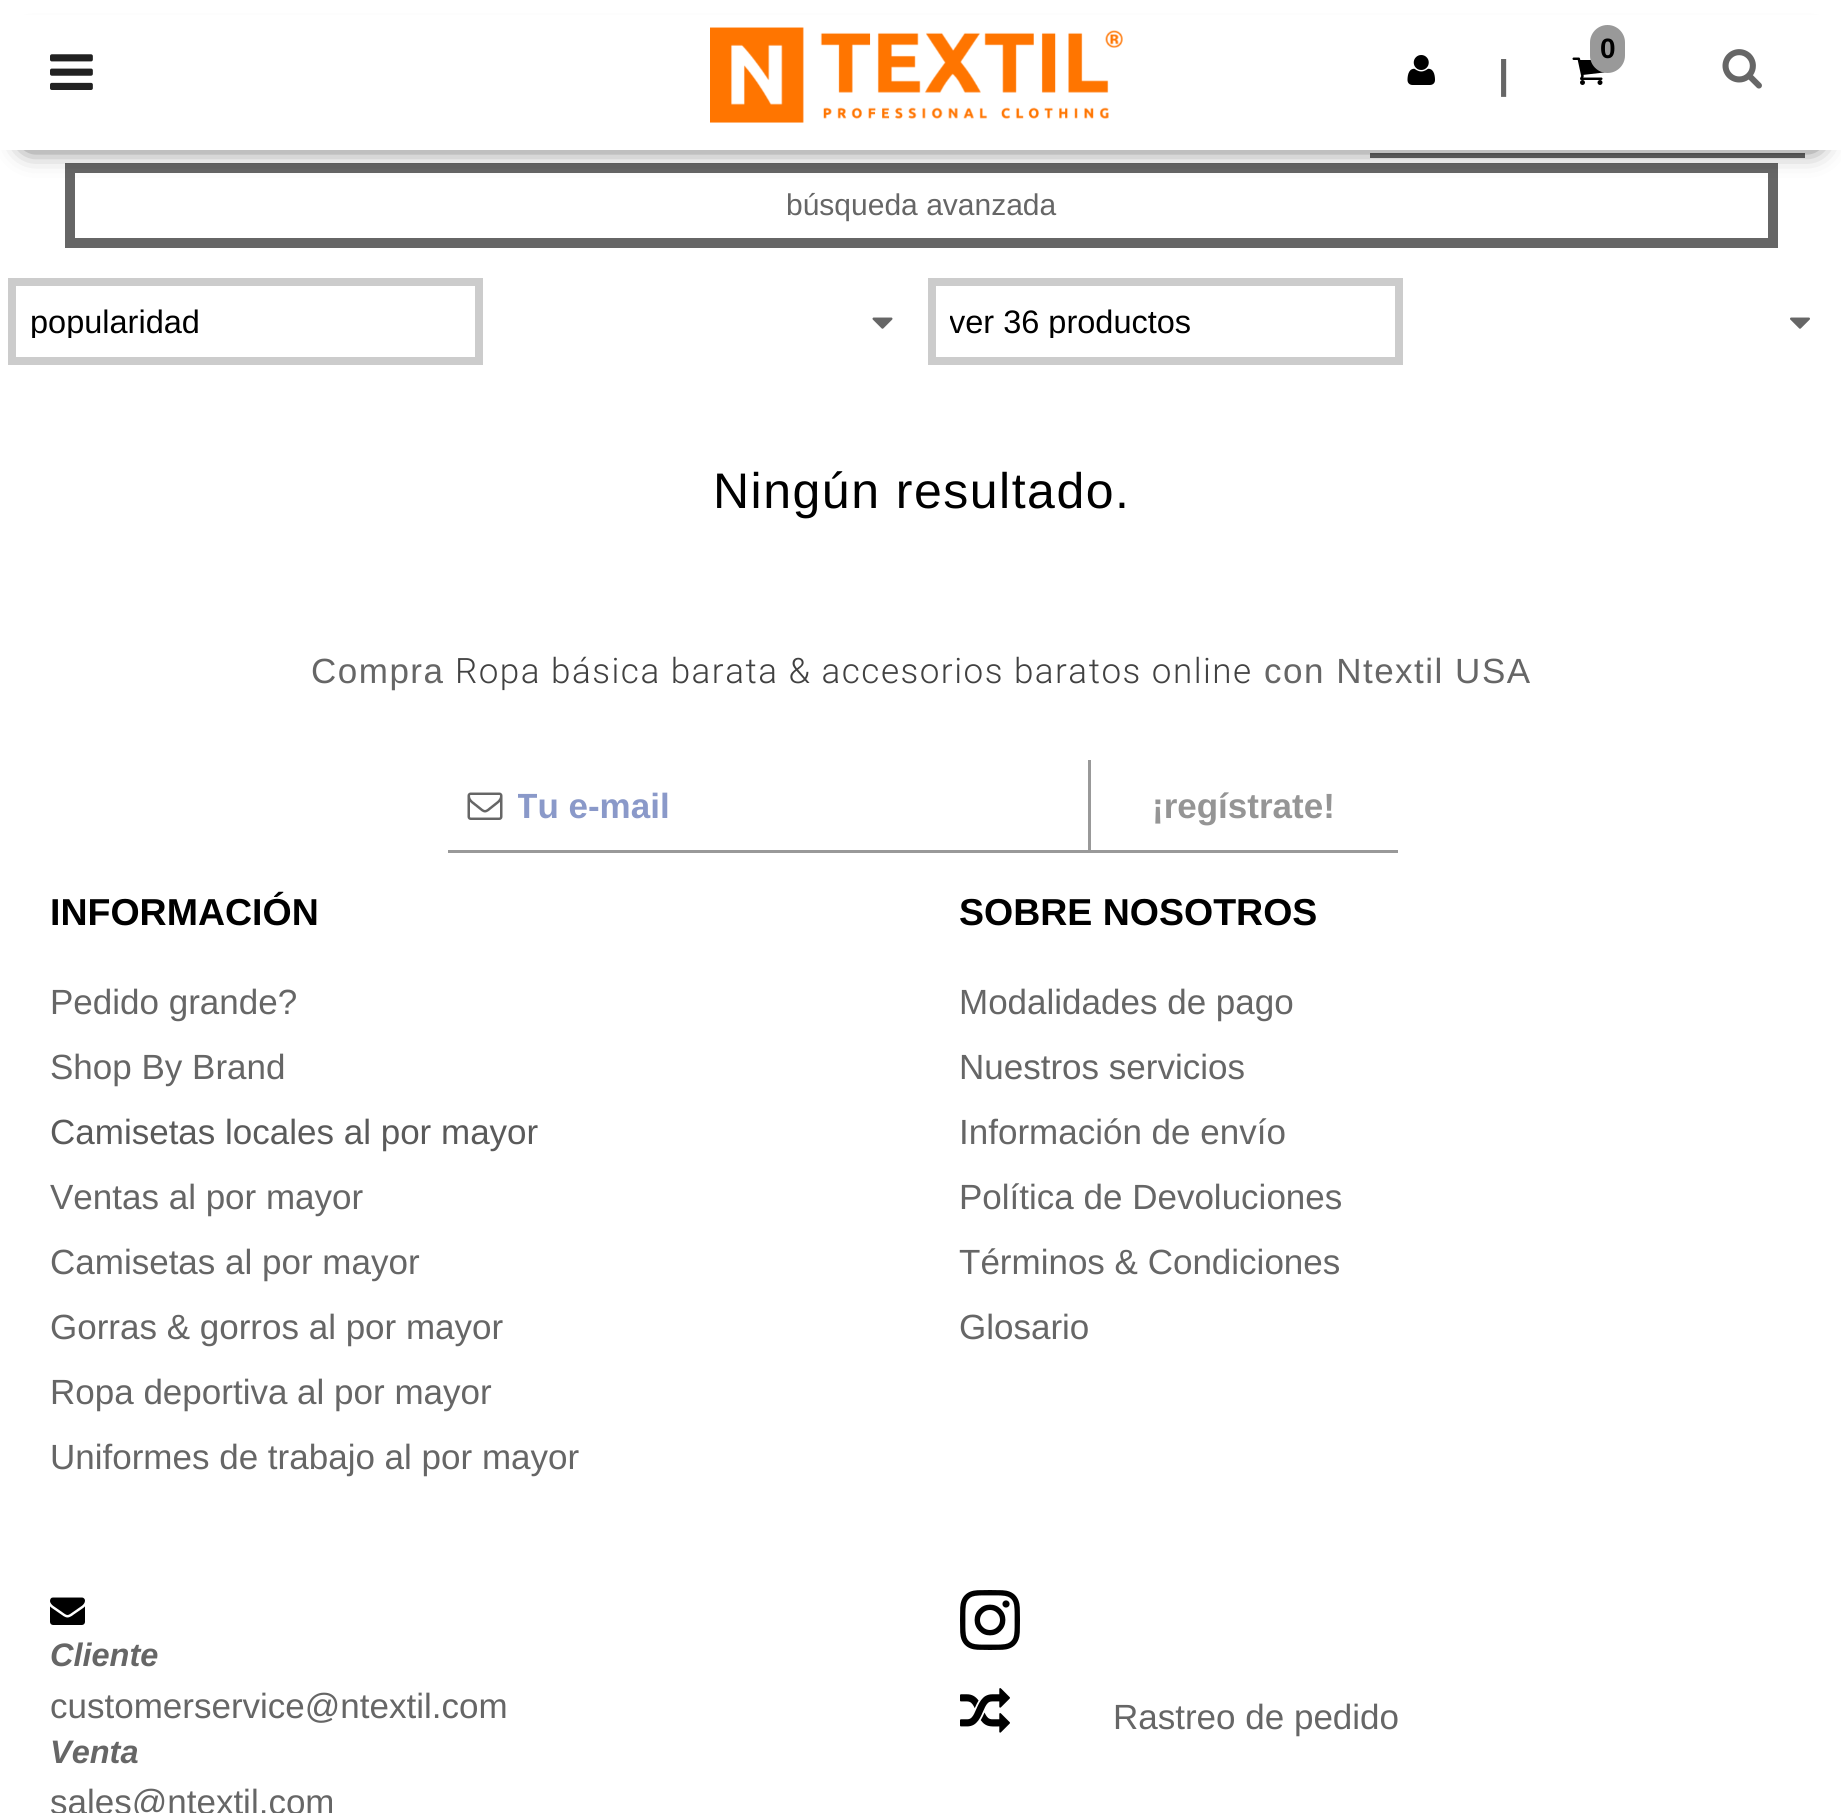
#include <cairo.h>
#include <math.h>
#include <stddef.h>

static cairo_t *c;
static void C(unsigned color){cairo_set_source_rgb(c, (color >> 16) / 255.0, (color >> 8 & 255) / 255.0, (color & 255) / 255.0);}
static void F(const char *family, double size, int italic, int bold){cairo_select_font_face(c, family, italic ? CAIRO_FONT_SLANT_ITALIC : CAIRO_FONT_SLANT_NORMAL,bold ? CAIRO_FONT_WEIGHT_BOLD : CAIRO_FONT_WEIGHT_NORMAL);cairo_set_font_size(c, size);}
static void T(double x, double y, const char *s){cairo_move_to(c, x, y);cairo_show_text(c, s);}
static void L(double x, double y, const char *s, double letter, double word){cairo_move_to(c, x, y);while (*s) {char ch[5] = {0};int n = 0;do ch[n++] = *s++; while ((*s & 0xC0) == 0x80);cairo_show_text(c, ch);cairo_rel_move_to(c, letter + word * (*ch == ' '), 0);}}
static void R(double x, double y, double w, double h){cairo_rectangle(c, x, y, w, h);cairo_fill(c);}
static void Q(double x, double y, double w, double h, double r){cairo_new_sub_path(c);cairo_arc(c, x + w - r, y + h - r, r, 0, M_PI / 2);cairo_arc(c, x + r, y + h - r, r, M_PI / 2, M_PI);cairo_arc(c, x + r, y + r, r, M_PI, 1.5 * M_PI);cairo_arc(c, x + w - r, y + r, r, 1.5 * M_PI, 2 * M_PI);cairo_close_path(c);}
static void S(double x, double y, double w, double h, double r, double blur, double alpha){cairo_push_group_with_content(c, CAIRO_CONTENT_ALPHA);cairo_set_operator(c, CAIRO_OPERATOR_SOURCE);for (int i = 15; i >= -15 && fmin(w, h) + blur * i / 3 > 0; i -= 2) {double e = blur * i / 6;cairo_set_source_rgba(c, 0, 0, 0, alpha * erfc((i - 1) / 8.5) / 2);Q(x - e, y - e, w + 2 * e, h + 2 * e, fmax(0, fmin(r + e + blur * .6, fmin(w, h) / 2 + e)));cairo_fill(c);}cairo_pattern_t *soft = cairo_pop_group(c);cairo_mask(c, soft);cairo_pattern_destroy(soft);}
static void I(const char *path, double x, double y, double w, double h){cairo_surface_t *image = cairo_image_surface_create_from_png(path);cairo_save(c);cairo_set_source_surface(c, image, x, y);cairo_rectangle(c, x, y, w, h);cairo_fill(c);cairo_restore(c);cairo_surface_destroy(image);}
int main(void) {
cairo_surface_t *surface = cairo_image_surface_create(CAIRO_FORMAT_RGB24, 1841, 1813);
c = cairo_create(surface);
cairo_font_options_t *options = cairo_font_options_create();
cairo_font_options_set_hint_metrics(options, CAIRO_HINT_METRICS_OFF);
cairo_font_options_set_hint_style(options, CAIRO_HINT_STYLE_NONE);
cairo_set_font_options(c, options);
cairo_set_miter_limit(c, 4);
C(0xffffff);
cairo_paint(c);
C(0x666666);
R(1370,153,435,5);
cairo_rectangle(c,70,168,1703,75);
cairo_set_line_width(c,10);
cairo_stroke(c);
C(0x000000);
S(28,48,1787,95,0,14,1);
C(0xffffff);
R(0,15,1841,135);
I("1.png",50,54,43,36);
I("2.png",710,27,413,96);
I("3.png",1407,55,28,30);
F("Liberation Sans",40,0,1);
C(0x666666);
T(1498,88,"|");
I("4.png",1572,57,33,28);
C(0x999999);
Q(1590,25,35,48,17.5);
cairo_fill(c);
F("Liberation Sans",28,0,1);
C(0x000000);
T(1600,58,"0");
I("5.png",1722,49,40,40);
F("Liberation Sans",30,0,0);
C(0x666666);
T(786,215,"búsqueda avanzada");
cairo_rectangle(c,12,282,467,79);
C(0xcccccc);
cairo_set_line_width(c,8);
cairo_stroke(c);
cairo_save(c);
cairo_rectangle(c,30,305,383,33);
cairo_clip(c);
F("Liberation Sans",32.5,0,0);
C(0x000000);
T(30,333,"popularidad");
cairo_restore(c);
I("6.png",872,317,21,12);
cairo_rectangle(c,932,282,467,79);
cairo_stroke(c);
cairo_save(c);
cairo_rectangle(c,950,305,383,33);
cairo_clip(c);
F("Liberation Sans",32.5,0,0);
C(0x000000);
T(949,333,"ver 36 productos");
cairo_restore(c);
I("7.png",1790,317,20,12);
F("Liberation Sans",50,0,0);
C(0x000000);
L(713,508,"Ningún resultado.",1.5,0);
F("Liberation Sans",35,0,0);
C(0x666666);
L(311,683,"Compra",1.5,0);
F("Roboto Light",35,0,0);
C(0x414141);
L(455,683,"Ropa básica barata & accesorios baratos online",1.5,0);
F("Liberation Sans",35,0,0);
C(0x666666);
L(1264,683,"con Ntextil USA",1.5,0);
C(0x999999);
R(448,850,950,3);
I("8.png",467,792,36,28);
cairo_save(c);
cairo_rectangle(c,518,785,552,40);
cairo_clip(c);
F("Liberation Sans",35,0,1);
C(0x8a99c9);
T(516,818,"Tu e-mail");
cairo_restore(c);
R(1088,760,3,90);
F("Liberation Sans",35,0,1);
C(0x959595);
T(1152,818,"¡regístrate!");
F("Liberation Sans",37.5,0,1);
C(0x000000);
T(50,925,"INFORMACIÓN");
F("Liberation Sans",35,0,0);
C(0x666666);
T(50,1014,"Pedido grande?");
T(50,1079,"Shop By Brand");
C(0x5a5a5a);
T(50,1144,"Camisetas locales al por mayor");
C(0x666666);
T(50,1209,"Ventas al por mayor");
T(50,1274,"Camisetas al por mayor");
T(50,1339,"Gorras & gorros al por mayor");
T(50,1404,"Ropa deportiva al por mayor");
T(50,1469,"Uniformes de trabajo al por mayor");
F("Liberation Sans",37.5,0,1);
C(0x000000);
T(959,925,"SOBRE NOSOTROS");
F("Liberation Sans",35,0,0);
C(0x666666);
T(959,1014,"Modalidades de pago");
T(959,1079,"Nuestros servicios");
T(959,1144,"Información de envío");
T(959,1209,"Política de Devoluciones");
T(959,1274,"Términos & Condiciones");
T(959,1339,"Glosario");
I("9.png",50,1597,35,28);
F("Liberation Sans",32.5,1,1);
T(50,1666,"Cliente");
F("Liberation Sans",35,0,0);
T(50,1718,"customerservice@ntextil.com");
F("Liberation Sans",32.5,1,1);
T(50,1763,"Venta");
F("Liberation Sans",35,0,0);
T(50,1814,"sales@ntextil.com");
I("10.png",960,1590,60,60);
I("11.png",960,1688,50,45);
T(1113,1729,"Rastreo de pedido");
cairo_surface_write_to_png(surface, "o.png");
cairo_font_options_destroy(options);
cairo_destroy(c);
cairo_surface_destroy(surface);
return 0;
}
